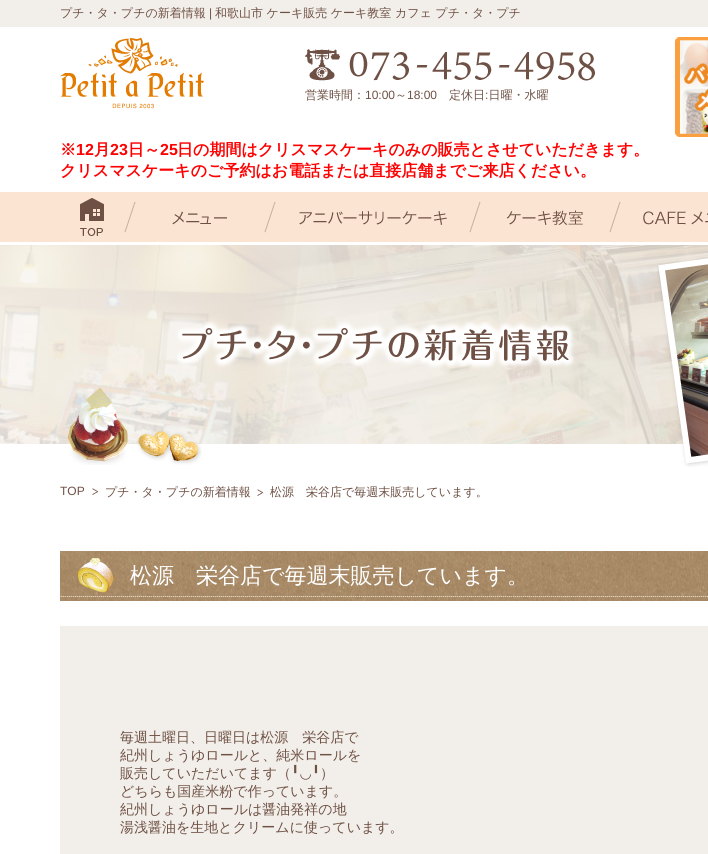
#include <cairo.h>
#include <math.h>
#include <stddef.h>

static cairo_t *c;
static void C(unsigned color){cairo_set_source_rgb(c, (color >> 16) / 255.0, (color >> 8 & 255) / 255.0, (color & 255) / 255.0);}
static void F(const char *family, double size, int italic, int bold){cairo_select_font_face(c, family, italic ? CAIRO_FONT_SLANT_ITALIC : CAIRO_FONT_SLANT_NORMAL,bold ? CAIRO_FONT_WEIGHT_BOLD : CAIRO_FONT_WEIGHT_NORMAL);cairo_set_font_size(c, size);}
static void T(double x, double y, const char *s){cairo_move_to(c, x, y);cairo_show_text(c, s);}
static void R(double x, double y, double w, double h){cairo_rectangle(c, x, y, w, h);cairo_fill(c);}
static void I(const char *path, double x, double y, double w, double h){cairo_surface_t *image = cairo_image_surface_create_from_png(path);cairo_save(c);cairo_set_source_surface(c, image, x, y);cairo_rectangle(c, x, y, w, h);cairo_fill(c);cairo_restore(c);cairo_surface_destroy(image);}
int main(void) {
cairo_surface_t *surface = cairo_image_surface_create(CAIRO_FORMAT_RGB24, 708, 854);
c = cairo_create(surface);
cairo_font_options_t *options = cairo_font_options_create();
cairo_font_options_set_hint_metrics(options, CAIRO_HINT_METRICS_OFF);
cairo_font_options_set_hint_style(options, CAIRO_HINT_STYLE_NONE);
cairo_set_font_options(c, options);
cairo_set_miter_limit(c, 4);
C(0xffffff);
cairo_paint(c);
C(0xf2efea);
R(0,0,708,27);
F("WenQuanYi Zen Hei Medium",12,0,0);
C(0x6e5044);
T(60,17,"プチ・タ・プチの新着情報");
F("Liberation Sans",12,0,0);
T(209,17,"|");
F("WenQuanYi Zen Hei Medium",12,0,0);
T(215,17,"和歌山市 ケーキ販売 ケーキ教室 カフェ プチ・タ・プチ");
I("1.png",60,37,144,72);
I("2.png",305,49,290,32);
T(305,99,"営業時間：");
F("Liberation Sans",12,0,0);
T(365,99,"10:00");
T(407,99,"18:00");
F("WenQuanYi Zen Hei Medium",12,0,0);
T(449,99,"定休日 日曜・水曜");
T(395,99,"～");
F("Liberation Sans",12,0,0);
T(485,99,":");
I("3.png",675,37,33,100);
F("WenQuanYi Zen Hei",16,0,1);
C(0xff0000);
T(60,155,"※");
F("Liberation Sans",16,0,1);
T(76,155,"12");
F("WenQuanYi Zen Hei",16,0,1);
T(94,155,"月");
F("Liberation Sans",16,0,1);
T(110,155,"23");
F("WenQuanYi Zen Hei",16,0,1);
T(128,155,"日～");
F("Liberation Sans",16,0,1);
T(160,155,"25");
F("WenQuanYi Zen Hei",16,0,1);
T(177,155,"日の期間はクリスマスケーキのみの販売とさせていただきます。");
T(60,176,"クリスマスケーキのご予約はお電話または直接店舗までご来店ください。");
C(0xfce4d2);
R(0,192,708,50);
I("4.png",124,201,12,32);
I("5.png",80,198,24,38);
I("4.png",264,201,12,32);
I("6.png",172,211,55,14);
I("4.png",469,201,12,32);
I("7.png",299,211,148,14);
I("4.png",609,201,12,32);
I("8.png",506,210,77,15);
I("9.png",643,211,65,14);
I("10.png",0,245,708,199);
I("11.png",177,321,398,48);
I("12.png",657,257,51,210);
I("13.png",67,388,135,77);
I("14.png",92,488,7,7);
F("Liberation Sans",12,0,0);
C(0x6e5044);
T(60,495,"TOP");
I("14.png",257,489,7,7);
F("WenQuanYi Zen Hei Medium",12,0,0);
T(105,496,"プチ・タ・プチの新着情報");
T(270,496,"松源　栄谷店で毎週末販売しています。");
I("15.png",60,551,648,50);
I("16.png",77,558,37,35);
F("WenQuanYi Zen Hei Medium",22,0,0);
C(0xffffff);
T(130,583,"松源　栄谷店で毎週末販売しています。");
C(0xf2efea);
R(60,626,648,228);
F("WenQuanYi Zen Hei Medium",14,0,0);
C(0x6e5044);
T(120,742,"毎週土曜日、日曜日は松源　栄谷店で");
T(120,760,"紀州しょうゆロールと、純米ロールを");
T(120,778,"販売していただいてます（");
F("DejaVu Sans",14,0,0);
T(291,778,"╹◡╹");
F("WenQuanYi Zen Hei Medium",14,0,0);
T(320,778,"）");
T(120,796,"どちらも国産米粉で作っています。");
T(120,814,"紀州しょうゆロールは醤油発祥の地");
T(120,832,"湯浅醤油を生地とクリームに使っています。");
cairo_surface_write_to_png(surface, "o.png");
cairo_font_options_destroy(options);
cairo_destroy(c);
cairo_surface_destroy(surface);
return 0;
}
